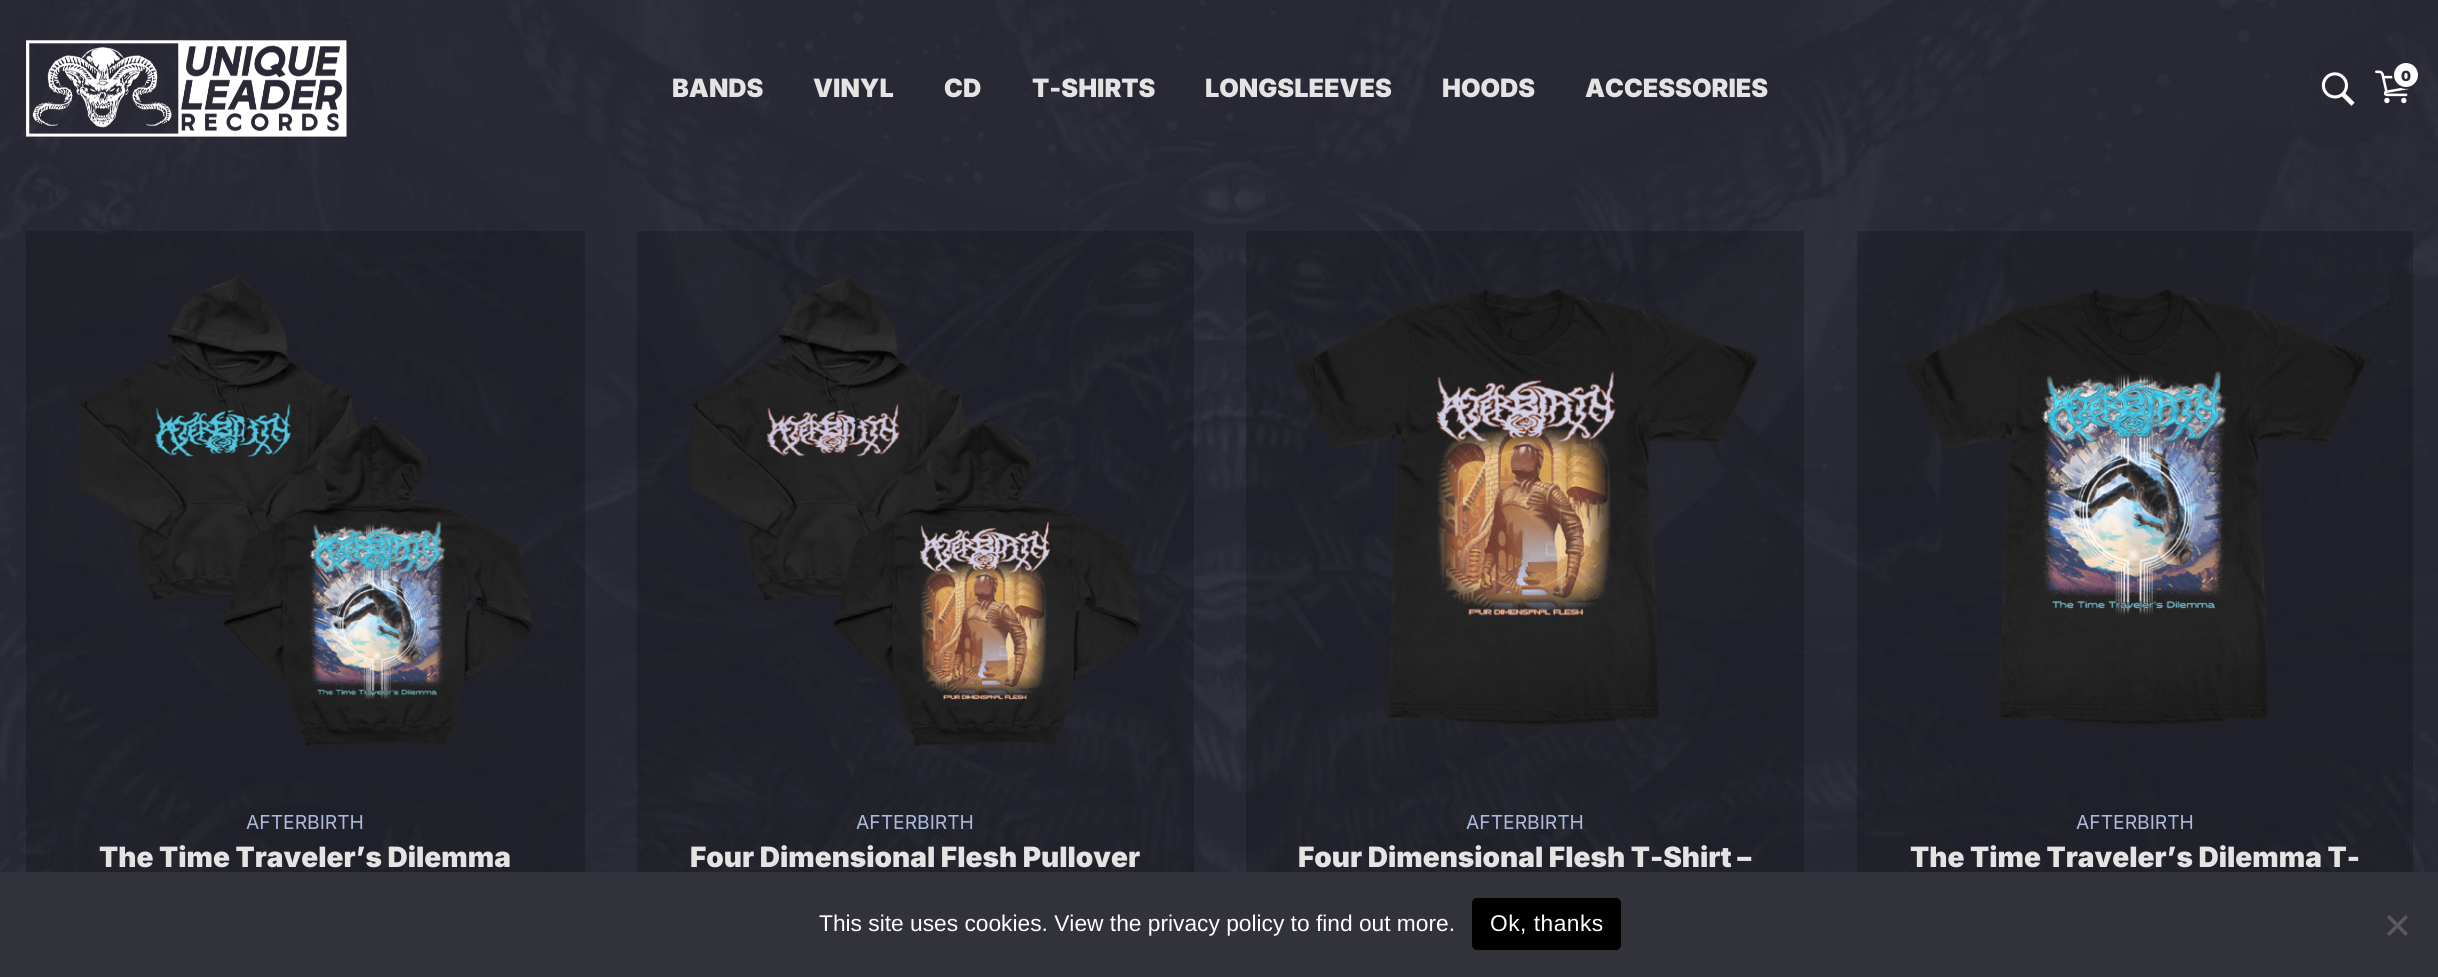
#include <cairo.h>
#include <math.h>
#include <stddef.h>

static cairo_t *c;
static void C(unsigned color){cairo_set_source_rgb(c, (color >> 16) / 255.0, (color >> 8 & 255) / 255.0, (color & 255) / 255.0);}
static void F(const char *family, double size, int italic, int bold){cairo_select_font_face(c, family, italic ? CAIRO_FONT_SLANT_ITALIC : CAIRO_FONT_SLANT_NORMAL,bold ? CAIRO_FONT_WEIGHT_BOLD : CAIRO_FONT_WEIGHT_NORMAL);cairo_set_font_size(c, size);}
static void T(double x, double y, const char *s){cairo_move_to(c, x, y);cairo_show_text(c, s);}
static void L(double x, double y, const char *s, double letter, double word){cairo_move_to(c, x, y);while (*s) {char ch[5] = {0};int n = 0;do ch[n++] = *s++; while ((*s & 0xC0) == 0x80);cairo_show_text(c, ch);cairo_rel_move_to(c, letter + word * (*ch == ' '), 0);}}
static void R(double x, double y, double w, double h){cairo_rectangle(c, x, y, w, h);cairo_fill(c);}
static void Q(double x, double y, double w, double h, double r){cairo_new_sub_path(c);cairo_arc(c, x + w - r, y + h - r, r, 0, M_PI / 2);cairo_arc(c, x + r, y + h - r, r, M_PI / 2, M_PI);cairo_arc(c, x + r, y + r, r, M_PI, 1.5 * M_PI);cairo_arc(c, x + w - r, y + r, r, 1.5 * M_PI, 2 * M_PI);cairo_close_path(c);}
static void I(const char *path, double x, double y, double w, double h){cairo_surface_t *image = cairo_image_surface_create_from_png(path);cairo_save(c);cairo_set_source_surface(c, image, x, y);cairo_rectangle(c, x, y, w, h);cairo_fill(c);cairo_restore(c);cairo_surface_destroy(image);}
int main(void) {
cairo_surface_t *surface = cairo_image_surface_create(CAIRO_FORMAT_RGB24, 2438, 977);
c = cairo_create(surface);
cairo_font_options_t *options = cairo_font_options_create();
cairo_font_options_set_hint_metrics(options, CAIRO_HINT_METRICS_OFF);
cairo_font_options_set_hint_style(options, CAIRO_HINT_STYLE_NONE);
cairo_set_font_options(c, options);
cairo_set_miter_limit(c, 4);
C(0xffffff);
cairo_paint(c);
I("1.png",0,0,2438,872);
I("2.png",26,40,321,97);
I("3.png",2321,72,34,34);
I("4.png",2375,70,34,34);
C(0xffffff);
cairo_arc(c,2406,75,13,0,2 * M_PI);
cairo_fill_preserve(c);
C(0x292a35);
cairo_stroke(c);
F("Inter Black",14,0,0);
T(2401,81,"0");
F("Inter Black",25.25,0,0);
C(0xe4e4e4);
T(672,97,"BANDS");
T(813,97,"VINYL");
T(944,97,"CD");
T(1032,97,"T-SHIRTS");
T(1205,97,"LONGSLEEVES");
T(1442,97,"HOODS");
T(1585,97,"ACCESSORIES");
cairo_set_source_rgba(c,0,0,0,0.2);
R(26,231,559,641);
I("5.png",78,275,455,471);
F("Inter",19.25,0,0);
C(0xaabadb);
T(246,829,"AFTERBIRTH");
F("Inter Black",28,0,0);
C(0xe4e4e4);
T(99,867,"The Time Traveler’s Dilemma");
cairo_set_source_rgba(c,0,0,0,0.2);
R(637,231,557,641);
I("6.png",689,275,453,471);
F("Inter",19.25,0,0);
C(0xaabadb);
T(856,829,"AFTERBIRTH");
F("Inter Black",28,0,0);
C(0xe4e4e4);
T(690,867,"Four Dimensional Flesh Pullover");
cairo_set_source_rgba(c,0,0,0,0.2);
R(1246,231,558,641);
I("7.png",1294,289,465,437);
F("Inter",19.25,0,0);
C(0xaabadb);
T(1466,829,"AFTERBIRTH");
F("Inter Black",28,0,0);
C(0xe4e4e4);
T(1298,867,"Four Dimensional Flesh T-Shirt –");
cairo_set_source_rgba(c,0,0,0,0.2);
R(1857,231,556,641);
I("8.png",1905,289,463,437);
F("Inter",19.25,0,0);
C(0xaabadb);
T(2076,829,"AFTERBIRTH");
F("Inter Black",28,0,0);
C(0xe4e4e4);
T(1910,867,"The Time Traveler’s Dilemma T-");
C(0x32323a);
R(0,872,2438,105);
F("Liberation Sans",22.75,0,0);
C(0xffffff);
T(819,931,"This site uses cookies. View the privacy policy to find out more.");
C(0x000000);
Q(1472,898,149,52,5);
cairo_fill(c);
C(0xffffff);
L(1490,931,"Ok, thanks",.5,0);
C(0x59595d);
cairo_new_path(c);
cairo_move_to(c,2405.5,915);
cairo_line_to(c,2408,917.5);
cairo_line_to(c,2389.5,936);
cairo_line_to(c,2387,933.5);
cairo_close_path(c);
cairo_fill(c);
cairo_new_path(c);
cairo_move_to(c,2387,917.5);
cairo_line_to(c,2389.5,915);
cairo_line_to(c,2408,933.5);
cairo_line_to(c,2405.5,936);
cairo_close_path(c);
cairo_fill(c);
cairo_surface_write_to_png(surface, "o.png");
cairo_font_options_destroy(options);
cairo_destroy(c);
cairo_surface_destroy(surface);
return 0;
}
